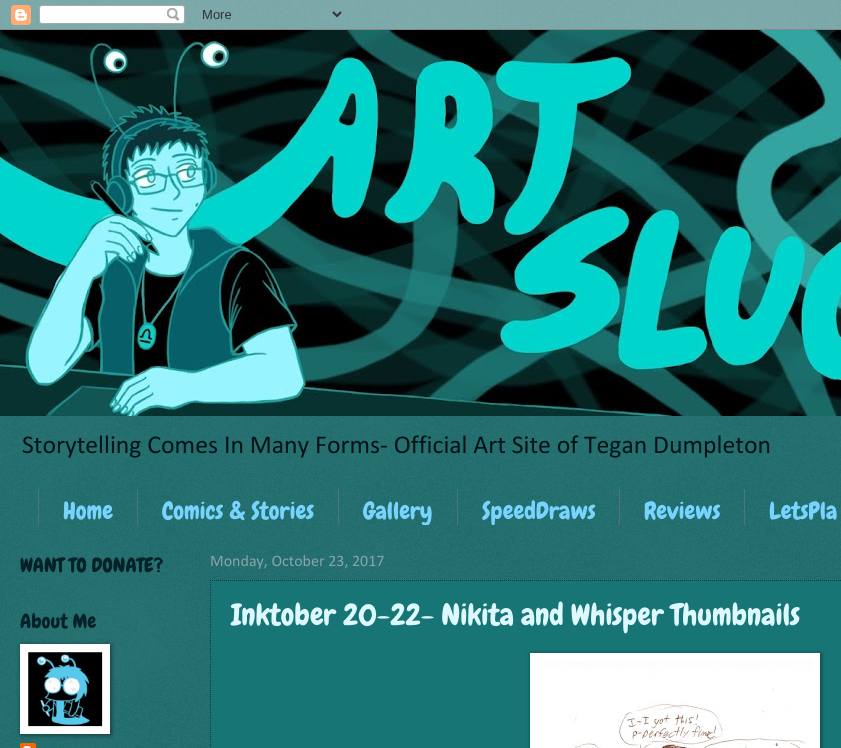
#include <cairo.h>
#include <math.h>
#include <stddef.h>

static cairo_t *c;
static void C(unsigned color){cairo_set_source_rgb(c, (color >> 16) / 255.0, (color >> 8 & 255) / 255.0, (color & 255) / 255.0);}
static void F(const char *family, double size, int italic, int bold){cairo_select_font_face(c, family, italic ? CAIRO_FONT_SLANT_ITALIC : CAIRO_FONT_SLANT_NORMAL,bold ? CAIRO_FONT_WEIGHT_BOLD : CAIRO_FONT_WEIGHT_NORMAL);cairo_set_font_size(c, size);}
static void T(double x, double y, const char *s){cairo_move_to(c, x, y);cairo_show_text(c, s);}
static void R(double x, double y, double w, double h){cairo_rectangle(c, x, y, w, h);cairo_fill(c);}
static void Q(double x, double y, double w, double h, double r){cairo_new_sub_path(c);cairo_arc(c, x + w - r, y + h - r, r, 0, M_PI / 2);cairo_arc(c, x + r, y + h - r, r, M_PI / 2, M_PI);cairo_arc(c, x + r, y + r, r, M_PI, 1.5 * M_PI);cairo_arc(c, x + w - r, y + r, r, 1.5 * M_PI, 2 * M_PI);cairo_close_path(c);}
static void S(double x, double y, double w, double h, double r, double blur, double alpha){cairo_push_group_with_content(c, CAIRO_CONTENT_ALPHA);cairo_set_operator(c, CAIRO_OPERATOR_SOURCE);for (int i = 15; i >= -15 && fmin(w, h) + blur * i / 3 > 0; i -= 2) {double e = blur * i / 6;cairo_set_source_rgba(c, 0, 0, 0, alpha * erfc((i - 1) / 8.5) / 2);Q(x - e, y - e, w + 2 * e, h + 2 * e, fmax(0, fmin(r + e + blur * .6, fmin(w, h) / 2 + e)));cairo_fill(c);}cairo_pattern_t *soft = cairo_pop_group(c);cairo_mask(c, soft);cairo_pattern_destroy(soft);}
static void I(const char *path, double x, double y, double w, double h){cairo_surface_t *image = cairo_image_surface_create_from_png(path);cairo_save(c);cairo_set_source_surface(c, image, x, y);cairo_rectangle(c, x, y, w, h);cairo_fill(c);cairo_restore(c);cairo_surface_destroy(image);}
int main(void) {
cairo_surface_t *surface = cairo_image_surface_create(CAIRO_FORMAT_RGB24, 841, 748);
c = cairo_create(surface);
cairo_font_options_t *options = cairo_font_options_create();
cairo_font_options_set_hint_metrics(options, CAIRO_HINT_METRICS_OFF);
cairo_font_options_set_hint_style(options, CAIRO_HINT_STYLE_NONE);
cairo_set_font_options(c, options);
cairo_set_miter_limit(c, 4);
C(0x005757);
cairo_paint(c);
I("1.png",0,0,841,748);
I("2.png",0,0,841,30);
I("3.png",0,30,841,386);
F("Calibri",25.75,0,0);
C(0x021317);
T(22,453,"Storytelling Comes In Many Forms- Official Art Site of Tegan Dumpleton");
C(0x567278);
R(137,489,1,36);
R(38,489,1,36);
F("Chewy",24,0,0);
C(0x77d4ff);
T(63,519,"Home");
C(0x567278);
R(338,489,1,36);
C(0x77d4ff);
T(162,519,"Comics & Stories");
C(0x567278);
R(457,489,1,36);
cairo_save(c);
cairo_rectangle(c,13,487,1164,38);
cairo_clip(c);
C(0x77d4ff);
T(363,519,"Gallery");
cairo_restore(c);
R(619,489,1,36);
cairo_save(c);
cairo_rectangle(c,13,487,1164,38);
cairo_clip(c);
C(0x77d4ff);
T(482,519,"SpeedDraws");
cairo_restore(c);
R(744,489,1,36);
C(0x77d4ff);
T(644,519,"Reviews");
T(769,519,"LetsPla");
F("Chewy",20,0,0);
C(0x052128);
T(20,572,"WANT TO DONATE?");
T(20,628,"About Me");
I("5.png",20,743,16,5);
C(0x000000);
S(21,645,90,90,0,2.5,.5);
C(0xffffff);
R(20,644,90,90);
I("4.png",28,652,75,75);
F("Calibri",16,0,0);
C(0x88a4aa);
T(210,566,"Monday, October 23, 2017");
C(0x177575);
R(210,580,631,168);
cairo_new_path(c);
cairo_move_to(c,210,580.5);
cairo_line_to(c,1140,580.5);
C(0x153941);
cairo_set_line_width(c,1);
cairo_set_dash(c,(double[]){1,1},2,0);
cairo_stroke(c);
cairo_new_path(c);
cairo_move_to(c,210.5,580);
cairo_line_to(c,210.5,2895);
cairo_stroke(c);
F("Chewy",30,0,0);
C(0xddf8ff);
T(231,625,"Inktober 20-22- Nikita and Whisper Thumbnails");
C(0x000000);
S(531,654,290,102,0,2.5,.5);
C(0xffffff);
R(530,653,290,95);
I("6.png",542,661,270,87);
cairo_surface_write_to_png(surface, "o.png");
cairo_font_options_destroy(options);
cairo_destroy(c);
cairo_surface_destroy(surface);
return 0;
}
